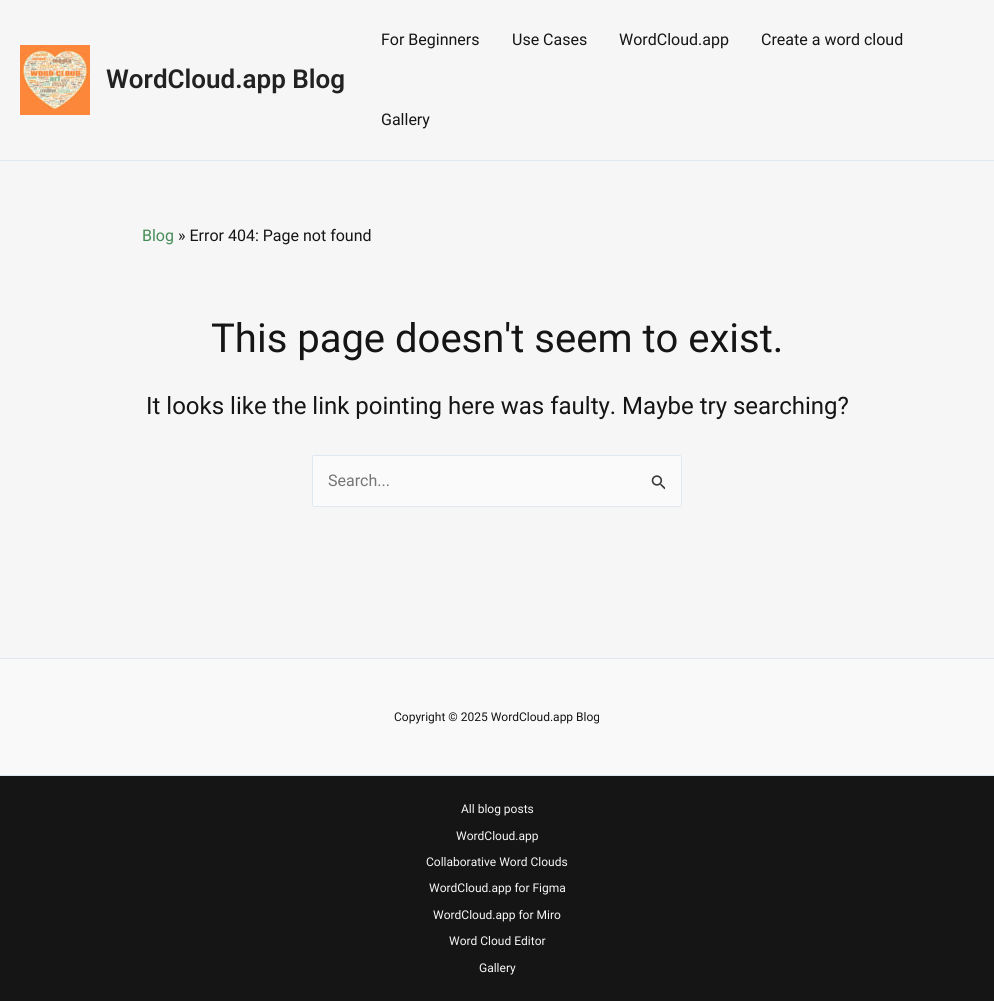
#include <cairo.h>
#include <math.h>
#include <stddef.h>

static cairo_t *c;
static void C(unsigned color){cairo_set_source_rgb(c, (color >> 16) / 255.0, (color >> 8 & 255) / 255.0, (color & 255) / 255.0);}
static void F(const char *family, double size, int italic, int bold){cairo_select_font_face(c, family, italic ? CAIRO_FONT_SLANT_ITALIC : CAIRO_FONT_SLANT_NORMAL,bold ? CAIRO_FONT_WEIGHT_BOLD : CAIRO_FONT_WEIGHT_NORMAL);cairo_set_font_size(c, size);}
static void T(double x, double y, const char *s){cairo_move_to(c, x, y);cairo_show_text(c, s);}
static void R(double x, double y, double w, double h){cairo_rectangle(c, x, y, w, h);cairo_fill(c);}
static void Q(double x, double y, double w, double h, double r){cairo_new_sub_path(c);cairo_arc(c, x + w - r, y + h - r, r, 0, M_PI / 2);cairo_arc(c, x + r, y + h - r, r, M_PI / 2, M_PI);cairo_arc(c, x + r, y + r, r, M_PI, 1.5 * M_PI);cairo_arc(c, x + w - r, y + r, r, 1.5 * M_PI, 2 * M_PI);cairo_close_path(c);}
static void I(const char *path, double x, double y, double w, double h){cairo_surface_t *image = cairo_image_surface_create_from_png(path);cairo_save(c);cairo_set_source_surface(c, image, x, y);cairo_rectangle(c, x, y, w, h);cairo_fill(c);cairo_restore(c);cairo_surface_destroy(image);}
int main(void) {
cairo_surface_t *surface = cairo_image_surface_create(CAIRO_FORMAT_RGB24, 994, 1001);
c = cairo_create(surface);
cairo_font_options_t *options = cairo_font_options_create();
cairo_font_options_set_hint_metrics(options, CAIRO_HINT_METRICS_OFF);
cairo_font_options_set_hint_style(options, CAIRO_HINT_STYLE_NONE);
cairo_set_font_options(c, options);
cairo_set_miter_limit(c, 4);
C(0xf6f6f6);
cairo_paint(c);
C(0xe2e8f0);
R(0,160,994,1);
I("1.png",20,45,70,70);
F("Roboto SemiBold",26,0,0);
C(0x222222);
T(106,88,"WordCloud.app Blog");
F("Roboto",16,0,0);
C(0x151515);
T(381,45,"For Beginners");
T(512,45,"Use Cases");
T(619,45,"WordCloud.app");
T(761,45,"Create a word cloud");
T(381,125,"Gallery");
C(0x458c56);
T(142,241,"Blog");
C(0x151515);
T(178,241,"» Error 404: Page not found");
F("Roboto",40,0,0);
T(211,352,"This page doesn't seem to exist.");
F("Roboto",24,0,0);
T(146,414,"It looks like the link pointing here was faulty. Maybe try searching?");
C(0xfafafa);
Q(312.5,455.5,369,51,1.5);
cairo_fill_preserve(c);
C(0xe2e8f0);
cairo_set_line_width(c,1);
cairo_stroke(c);
F("Roboto",16,0,0);
C(0x757575);
T(328,486,"Search...");
I("2.png",651,475,14,15);
C(0xf9f9f9);
R(0,659,994,116);
C(0xe2e8f0);
R(0,658,994,1);
F("Roboto",12,0,0);
C(0x151515);
T(394,721,"Copyright © 2025 WordCloud.app Blog");
R(0,776,994,225);
C(0xe2e8f0);
R(0,775,994,1);
C(0xf6f6f6);
T(461,813,"All blog posts");
T(456,840,"WordCloud.app");
T(426,866,"Collaborative Word Clouds");
T(429,892,"WordCloud.app for Figma");
T(433,919,"WordCloud.app for Miro");
T(449,945,"Word Cloud Editor");
T(479,972,"Gallery");
cairo_surface_write_to_png(surface, "o.png");
cairo_font_options_destroy(options);
cairo_destroy(c);
cairo_surface_destroy(surface);
return 0;
}
